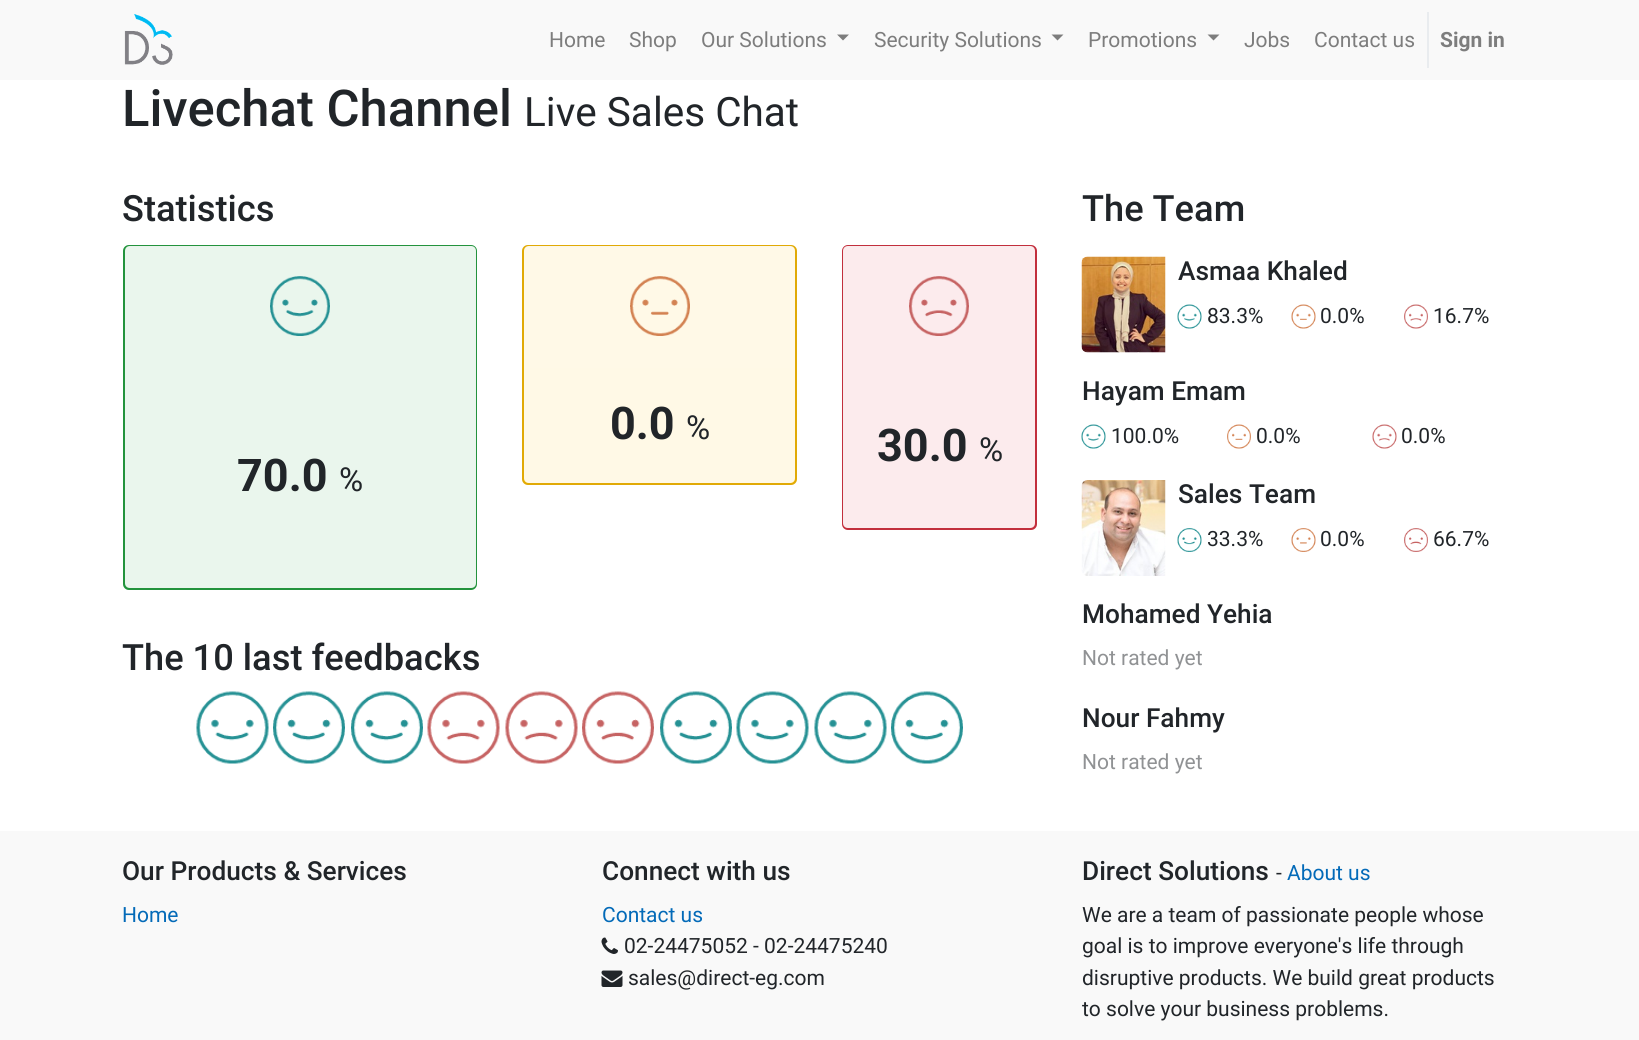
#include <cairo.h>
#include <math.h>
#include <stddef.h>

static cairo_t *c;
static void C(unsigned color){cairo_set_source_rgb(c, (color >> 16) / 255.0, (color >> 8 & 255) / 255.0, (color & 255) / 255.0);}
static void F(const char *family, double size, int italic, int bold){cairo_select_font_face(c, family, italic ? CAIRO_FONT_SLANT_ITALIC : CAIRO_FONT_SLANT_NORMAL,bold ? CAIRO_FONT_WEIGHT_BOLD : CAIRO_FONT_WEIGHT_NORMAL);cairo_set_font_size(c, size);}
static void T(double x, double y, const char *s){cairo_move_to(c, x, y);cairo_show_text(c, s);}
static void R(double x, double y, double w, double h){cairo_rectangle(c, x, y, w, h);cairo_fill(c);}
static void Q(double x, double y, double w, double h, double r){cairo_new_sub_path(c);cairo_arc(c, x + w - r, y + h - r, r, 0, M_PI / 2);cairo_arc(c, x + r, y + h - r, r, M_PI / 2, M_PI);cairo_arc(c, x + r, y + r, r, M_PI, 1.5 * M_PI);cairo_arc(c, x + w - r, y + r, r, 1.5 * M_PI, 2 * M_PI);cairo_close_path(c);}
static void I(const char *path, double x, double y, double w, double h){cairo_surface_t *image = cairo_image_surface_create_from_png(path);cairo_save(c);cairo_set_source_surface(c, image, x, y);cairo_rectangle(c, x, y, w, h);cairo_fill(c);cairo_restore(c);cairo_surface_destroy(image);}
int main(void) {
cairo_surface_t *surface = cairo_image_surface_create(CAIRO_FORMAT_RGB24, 1639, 1040);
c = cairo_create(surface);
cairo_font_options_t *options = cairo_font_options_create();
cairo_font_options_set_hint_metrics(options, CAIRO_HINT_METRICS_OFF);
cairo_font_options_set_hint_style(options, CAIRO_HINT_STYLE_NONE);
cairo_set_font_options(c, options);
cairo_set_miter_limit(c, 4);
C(0xffffff);
cairo_paint(c);
C(0xf9f9f9);
R(0,0,1639,80);
I("1.png",124,14,49,51);
F("Roboto",21,0,0);
C(0x7d7d7d);
T(549,47,"Home");
T(629,47,"Shop");
T(701,47,"Our Solutions");
cairo_new_path(c);
cairo_move_to(c,837,34.5);
cairo_line_to(c,849,34.5);
cairo_line_to(c,843,40.5);
cairo_close_path(c);
cairo_fill(c);
T(874,47,"Security Solutions");
cairo_new_path(c);
cairo_move_to(c,1051.5,34.5);
cairo_line_to(c,1063.5,34.5);
cairo_line_to(c,1057.5,40.5);
cairo_close_path(c);
cairo_fill(c);
T(1088,47,"Promotions");
cairo_new_path(c);
cairo_move_to(c,1207.5,34.5);
cairo_line_to(c,1219.5,34.5);
cairo_line_to(c,1213.5,40.5);
cairo_close_path(c);
cairo_fill(c);
T(1244,47,"Jobs");
T(1314,47,"Contact us");
C(0xe9ecef);
R(1427,12,2,56);
F("Roboto",21,0,1);
C(0x7d7d7d);
T(1440,47,"Sign in");
F("Roboto Medium",50.75,0,0);
C(0x212529);
T(122,126,"Livechat Channel");
F("Roboto",40.5,0,0);
T(524,126,"Live Sales Chat");
F("Roboto Medium",36.25,0,0);
T(122,221,"Statistics");
C(0xffc107);
Q(522,245,275,240,6);
cairo_fill(c);
Q(523,246,273,238,5);
cairo_set_source_rgba(c,0,0,0,0.12);
cairo_stroke(c);
cairo_set_source_rgba(c,1,1,1,0.9);
cairo_new_path(c);
cairo_move_to(c,529,246);
cairo_line_to(c,790,246);
cairo_curve_to(c,793,246,795,248,795,251);
cairo_line_to(c,795,368);
cairo_line_to(c,524,368);
cairo_line_to(c,524,251);
cairo_curve_to(c,524,248,526,246,529,246);
cairo_close_path(c);
cairo_fill(c);
I("2.png",630,276,60,60);
C(0xfff9e6);
cairo_new_path(c);
cairo_move_to(c,524,368);
cairo_line_to(c,795,368);
cairo_line_to(c,795,478);
cairo_curve_to(c,795,481,793,483,790,483);
cairo_line_to(c,529,483);
cairo_curve_to(c,526,483,524,481,524,478);
cairo_close_path(c);
cairo_fill(c);
F("Roboto",45,0,1);
C(0x212529);
T(610,439,"0.0");
F("Roboto",33,0,0);
T(686,439,"%");
C(0xdc3545);
Q(842,245,195,285,6);
cairo_fill(c);
Q(843,246,193,283,5);
cairo_set_source_rgba(c,0,0,0,0.12);
cairo_stroke(c);
cairo_set_source_rgba(c,1,1,1,0.9);
cairo_new_path(c);
cairo_move_to(c,848,246);
cairo_line_to(c,1030,246);
cairo_curve_to(c,1033,246,1035,248,1035,251);
cairo_line_to(c,1035,390);
cairo_line_to(c,843,390);
cairo_line_to(c,843,251);
cairo_curve_to(c,843,248,845,246,848,246);
cairo_close_path(c);
cairo_fill(c);
I("3.png",909,276,60,60);
cairo_new_path(c);
cairo_move_to(c,843,390);
cairo_line_to(c,1035,390);
cairo_line_to(c,1035,523);
cairo_curve_to(c,1035,526,1033,528,1030,528);
cairo_line_to(c,848,528);
cairo_curve_to(c,845,528,843,526,843,523);
cairo_close_path(c);
cairo_fill(c);
F("Roboto",45,0,1);
C(0x212529);
T(877,461,"30.0");
F("Roboto",33,0,0);
T(979,461,"%");
C(0x28a745);
Q(123,245,354,345,6);
cairo_fill(c);
Q(124,246,352,343,5);
cairo_set_source_rgba(c,0,0,0,0.12);
cairo_stroke(c);
cairo_set_source_rgba(c,1,1,1,0.9);
cairo_new_path(c);
cairo_move_to(c,130,246);
cairo_line_to(c,471,246);
cairo_curve_to(c,474,246,476,248,476,251);
cairo_line_to(c,476,420);
cairo_line_to(c,125,420);
cairo_line_to(c,125,251);
cairo_curve_to(c,125,248,127,246,130,246);
cairo_close_path(c);
cairo_fill(c);
I("4.png",270,276,60,60);
cairo_new_path(c);
cairo_move_to(c,125,420);
cairo_line_to(c,476,420);
cairo_line_to(c,476,583);
cairo_curve_to(c,476,586,474,588,471,588);
cairo_line_to(c,130,588);
cairo_curve_to(c,127,588,125,586,125,583);
cairo_close_path(c);
cairo_fill(c);
F("Roboto",45,0,1);
C(0x212529);
T(237,491,"70.0");
F("Roboto",33,0,0);
T(339,491,"%");
F("Roboto Medium",36.25,0,0);
T(122,670,"The 10 last feedbacks");
I("5.png",196,691,73,73);
I("6.png",273,691,72,73);
I("6.png",351,691,72,73);
I("7.png",427,691,73,73);
I("8.png",505,691,73,73);
I("9.png",582,691,72,73);
I("6.png",660,691,72,73);
I("10.png",736,691,73,73);
I("5.png",814,691,73,73);
I("6.png",891,691,72,73);
T(1082,221,"The Team");
I("11.png",1081,256,85,97);
F("Roboto Medium",26.25,0,0);
T(1178,280,"Asmaa Khaled");
I("12.png",1177,304,25,25);
F("Roboto",21,0,0);
T(1207,323,"83.3%");
I("13.png",1291,304,25,25);
T(1320,323,"0.0%");
I("14.png",1404,304,24,25);
T(1433,323,"16.7%");
F("Roboto Medium",26.25,0,0);
T(1082,400,"Hayam Emam");
I("15.png",1081,424,25,25);
F("Roboto",21,0,0);
T(1111,443,"100.0%");
I("16.png",1227,424,24,25);
T(1256,443,"0.0%");
I("17.png",1372,424,25,25);
T(1401,443,"0.0%");
I("18.png",1081,480,85,96);
F("Roboto Medium",26.25,0,0);
T(1178,503,"Sales Team");
I("19.png",1177,528,25,24);
F("Roboto",21,0,0);
T(1207,546,"33.3%");
I("20.png",1291,528,25,24);
T(1320,546,"0.0%");
I("21.png",1404,528,24,24);
T(1433,546,"66.7%");
F("Roboto Medium",26.25,0,0);
T(1082,623,"Mohamed Yehia");
F("Roboto",21,0,0);
C(0x909294);
T(1082,665,"Not rated yet");
F("Roboto Medium",26.25,0,0);
C(0x212529);
T(1082,727,"Nour Fahmy");
F("Roboto",21,0,0);
C(0x909294);
T(1082,769,"Not rated yet");
C(0xf9f9f9);
R(0,831,1639,209);
F("Roboto Medium",26.25,0,0);
C(0x212529);
T(122,880,"Our Products & Services");
F("Roboto",21,0,0);
C(0x036ab8);
T(122,922,"Home");
F("Roboto Medium",26.25,0,0);
C(0x212529);
T(602,880,"Connect with us");
F("Roboto",21,0,0);
C(0x036ab8);
T(602,922,"Contact us");
I("22.png",601,937,17,17);
C(0x212529);
T(624,953,"02-24475052 - 02-24475240");
I("23.png",601,970,22,17);
T(628,985,"sales@direct-eg.com");
F("Roboto Medium",26.25,0,0);
T(1082,880,"Direct Solutions");
F("Roboto",21,0,0);
T(1276,880,"-");
C(0x036ab8);
T(1287,880,"About us");
C(0x212529);
T(1082,922,"We are a team of passionate people whose");
T(1082,953,"goal is to improve everyone's life through");
T(1082,985,"disruptive products. We build great products");
T(1082,1016,"to solve your business problems.");
cairo_surface_write_to_png(surface, "o.png");
cairo_font_options_destroy(options);
cairo_destroy(c);
cairo_surface_destroy(surface);
return 0;
}
